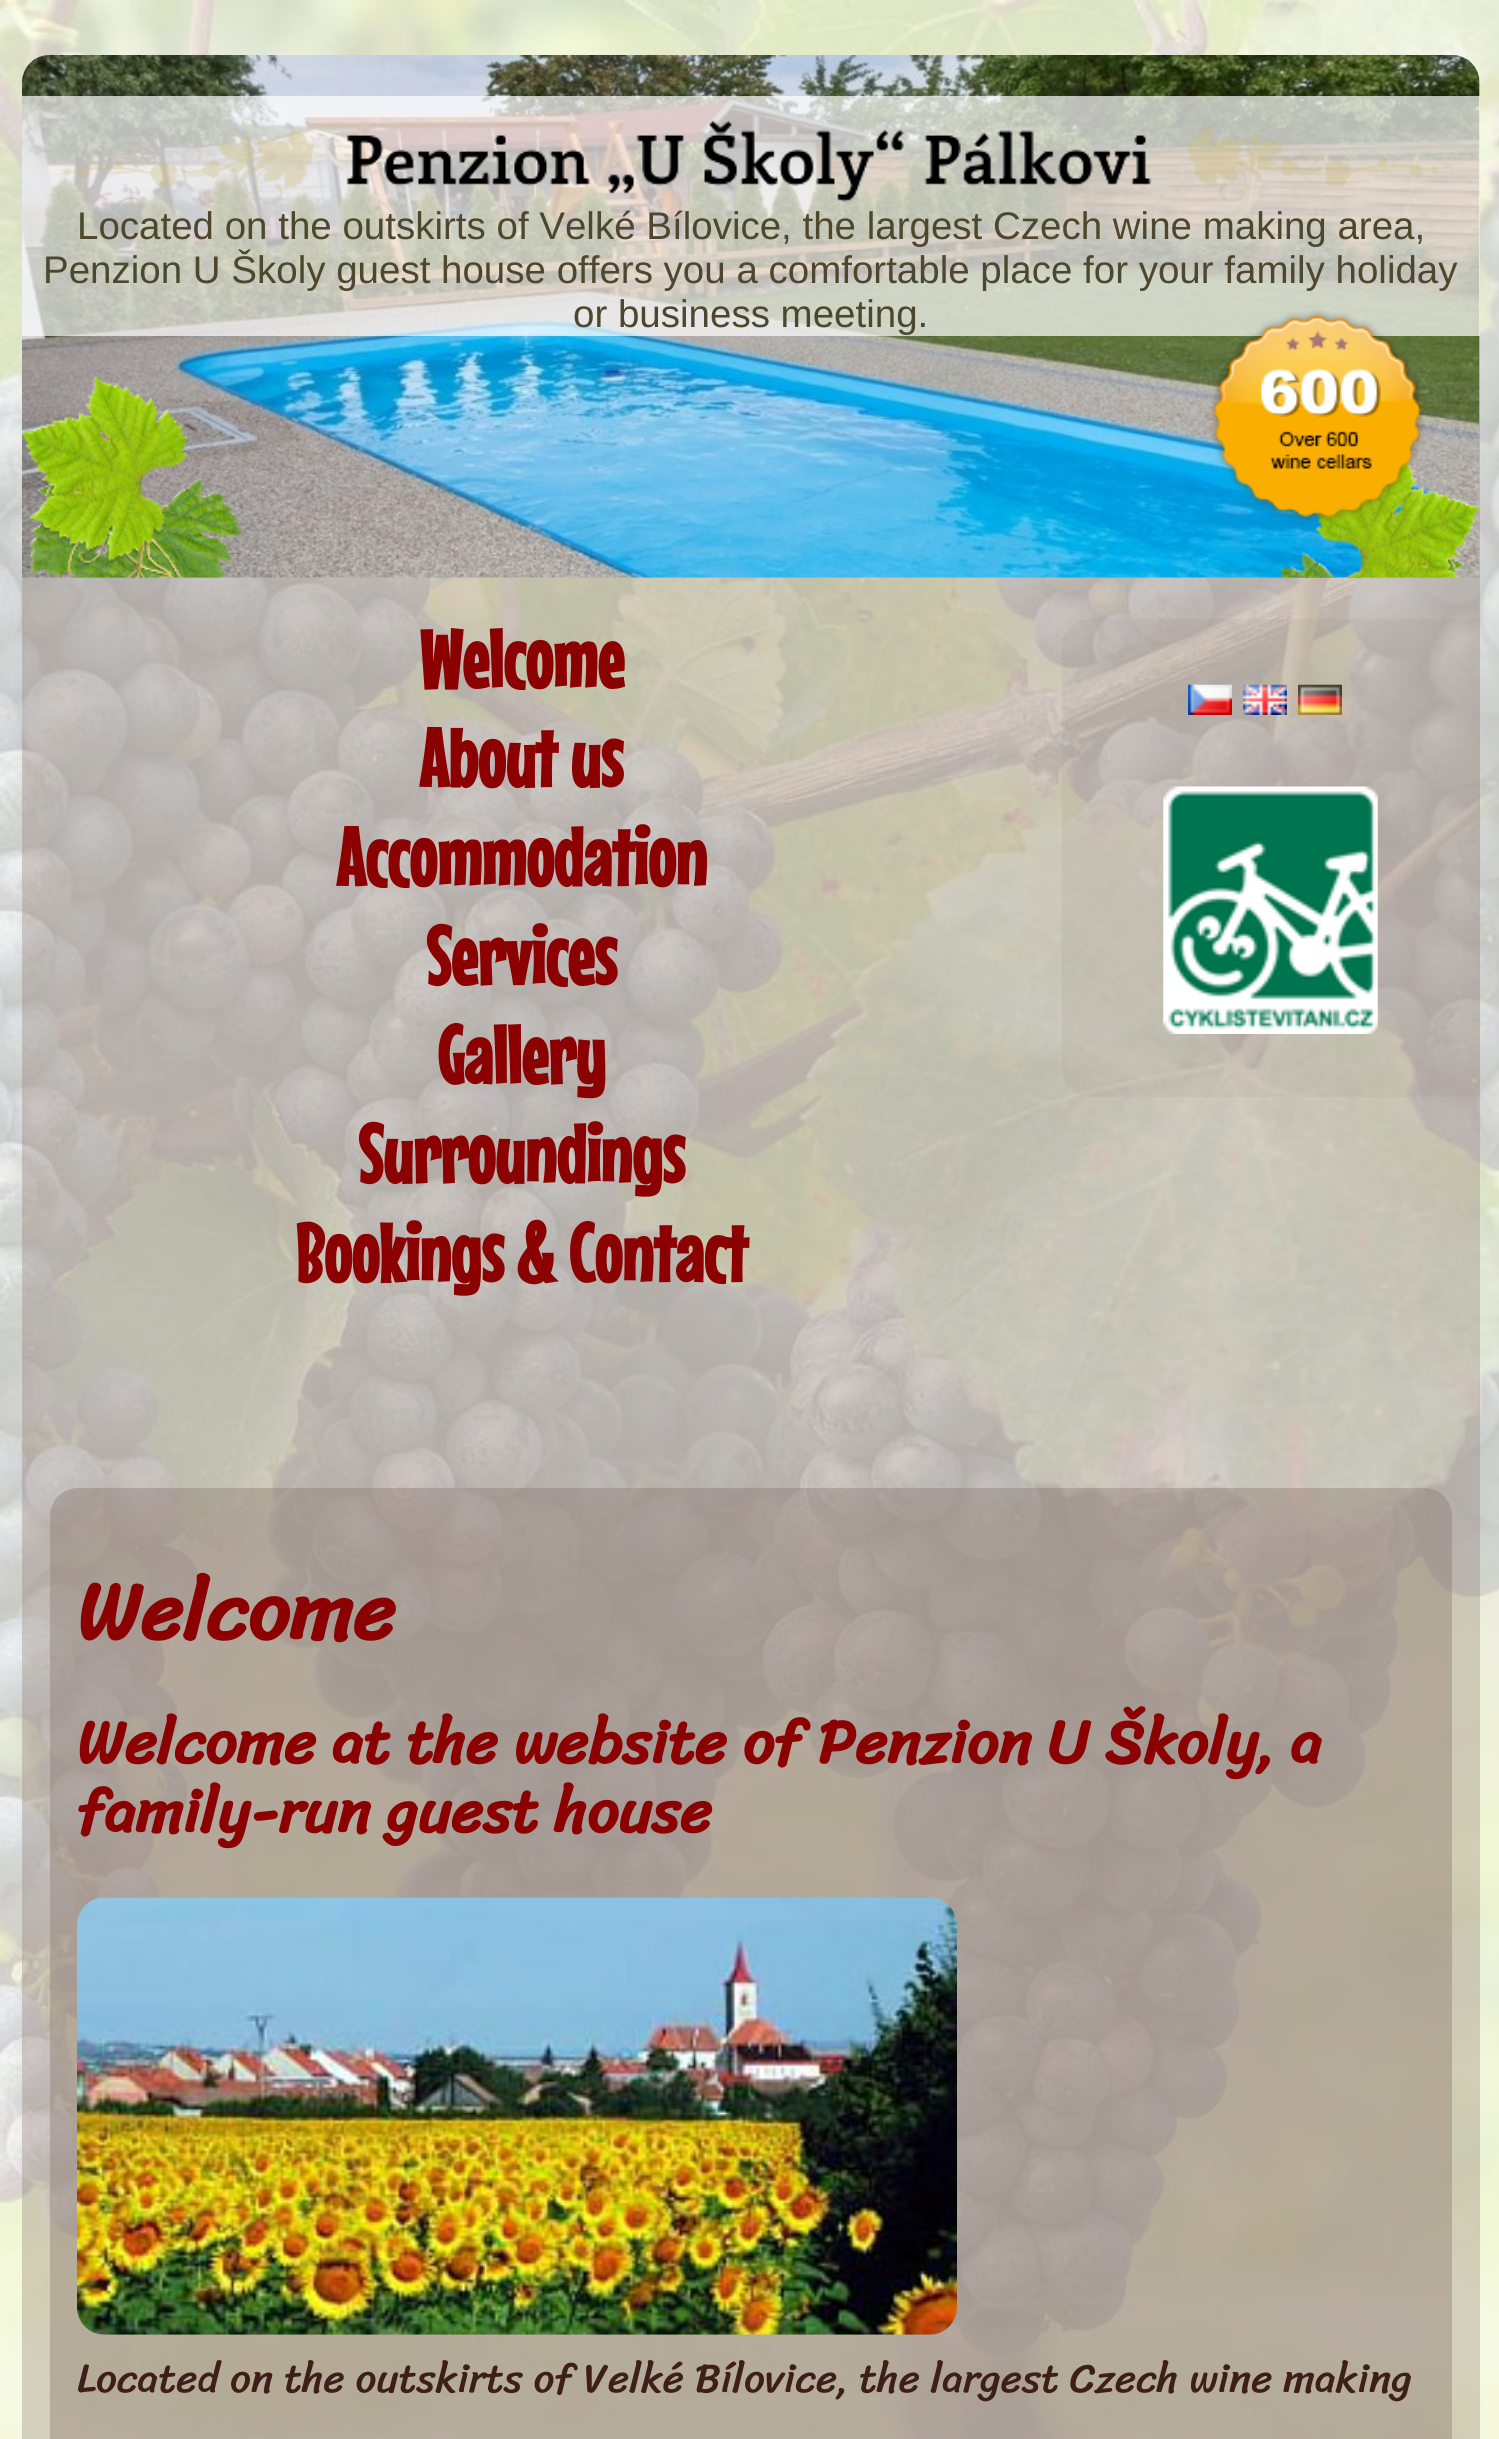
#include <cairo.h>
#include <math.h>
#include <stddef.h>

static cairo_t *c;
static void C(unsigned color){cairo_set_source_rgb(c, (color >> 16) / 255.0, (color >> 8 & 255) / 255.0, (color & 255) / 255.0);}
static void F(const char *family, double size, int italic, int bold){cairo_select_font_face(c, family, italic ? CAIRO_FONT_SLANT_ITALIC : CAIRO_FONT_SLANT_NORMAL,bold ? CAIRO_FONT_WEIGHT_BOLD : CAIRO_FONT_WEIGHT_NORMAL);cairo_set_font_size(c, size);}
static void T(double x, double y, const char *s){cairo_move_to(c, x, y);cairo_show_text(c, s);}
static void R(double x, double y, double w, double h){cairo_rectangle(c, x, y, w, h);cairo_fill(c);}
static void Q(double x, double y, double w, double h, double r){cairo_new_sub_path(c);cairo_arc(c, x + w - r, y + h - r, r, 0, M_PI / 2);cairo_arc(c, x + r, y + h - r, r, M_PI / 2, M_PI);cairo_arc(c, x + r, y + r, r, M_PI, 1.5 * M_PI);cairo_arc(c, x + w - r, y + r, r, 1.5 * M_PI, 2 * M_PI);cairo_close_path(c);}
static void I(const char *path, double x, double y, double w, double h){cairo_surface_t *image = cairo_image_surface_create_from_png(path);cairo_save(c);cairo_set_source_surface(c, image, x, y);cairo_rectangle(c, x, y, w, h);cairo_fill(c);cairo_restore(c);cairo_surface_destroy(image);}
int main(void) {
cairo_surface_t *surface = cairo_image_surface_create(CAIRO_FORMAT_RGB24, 1499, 2439);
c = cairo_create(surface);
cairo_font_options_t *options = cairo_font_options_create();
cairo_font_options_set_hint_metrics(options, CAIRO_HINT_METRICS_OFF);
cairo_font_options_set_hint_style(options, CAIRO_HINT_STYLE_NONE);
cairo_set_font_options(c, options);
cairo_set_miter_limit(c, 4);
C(0xffffff);
cairo_paint(c);
I("1.png",0,0,1499,2439);
cairo_set_source_rgba(c,0.553,0.475,0.439,0.33);
Q(22,55,1458,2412,28);
cairo_fill(c);
I("2.png",22,55,1458,523);
cairo_set_source_rgba(c,1,1,1,0.7);
R(22,96,1458,240);
I("3.png",47,120,1407,84);
F("Liberation Sans",38.5,0,0);
C(0x4d472e);
T(77,239,"Located on the outskirts of Velké Bílovice, the largest Czech wine making area,");
T(43,283,"Penzion U Školy guest house offers you a comfortable place for your family holiday");
T(573,327,"or business meeting.");
I("4.png",22,376,220,202);
I("6.png",1278,453,202,125);
I("5.png",1208,310,217,213);
F("Mouse Memoirs",82.5,0,1);
C(0x8b0000);
T(419,688,"Welcome");
T(419,787,"About us");
T(336,886,"Accommodation");
T(426,985,"Services");
T(437,1084,"Gallery");
T(358,1183,"Surroundings");
T(295,1282,"Bookings & Contact");
cairo_set_source_rgba(c,0.553,0.475,0.439,0.1);
cairo_new_path(c);
cairo_move_to(c,1090,619);
cairo_line_to(c,1480,619);
cairo_line_to(c,1480,1097);
cairo_line_to(c,1090,1097);
cairo_curve_to(c,1074.5,1097,1062,1084.5,1062,1069);
cairo_line_to(c,1062,647);
cairo_curve_to(c,1062,631.5,1074.5,619,1090,619);
cairo_close_path(c);
cairo_fill(c);
I("7.png",1188,684,44,31);
I("8.png",1243,684,44,31);
I("9.png",1298,684,44,31);
I("10.png",1163,786,215,248);
cairo_set_source_rgba(c,0.553,0.475,0.439,0.4);
Q(50,1488,1402,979,28);
cairo_fill(c);
F("Sriracha",82.5,0,1);
C(0x8b0000);
T(77,1639,"Welcome");
F("Sriracha",61.9,0,1);
T(77,1763,"Welcome at the website of Penzion U Školy, a");
T(77,1832,"family-run guest house");
I("11.png",77,1897,880,438);
F("Sriracha",41.25,0,0);
C(0x3d1e19);
T(77,2392,"Located on the outskirts of Velké Bílovice, the largest Czech wine making");
cairo_surface_write_to_png(surface, "o.png");
cairo_font_options_destroy(options);
cairo_destroy(c);
cairo_surface_destroy(surface);
return 0;
}
